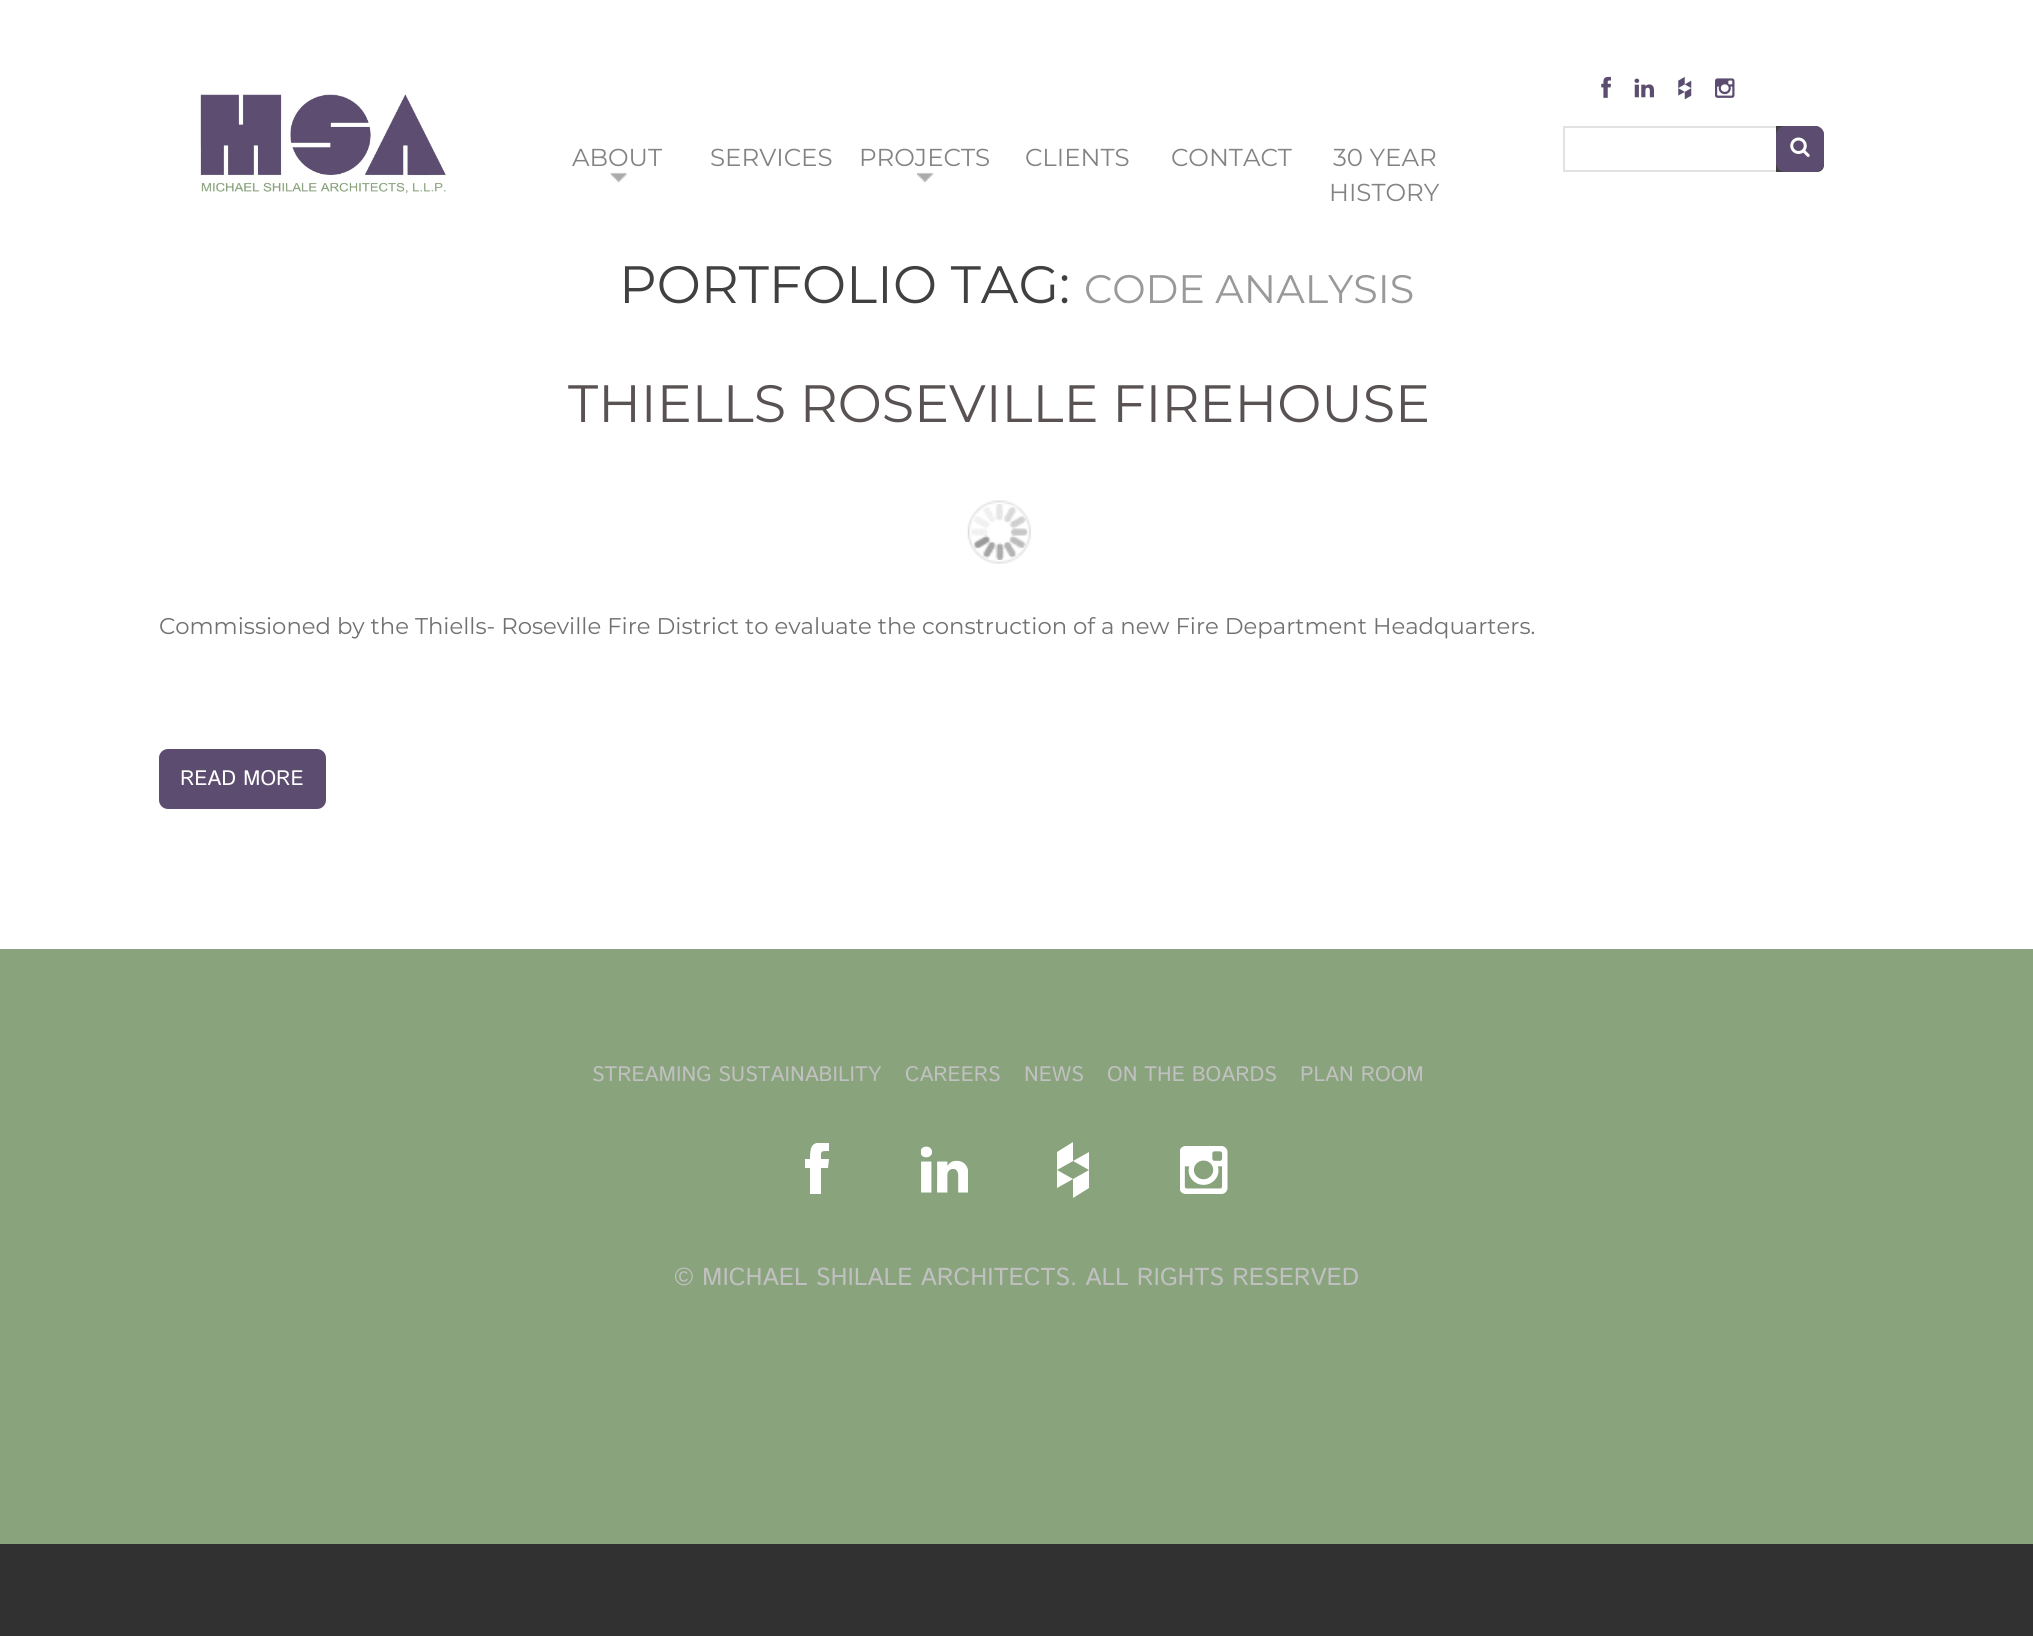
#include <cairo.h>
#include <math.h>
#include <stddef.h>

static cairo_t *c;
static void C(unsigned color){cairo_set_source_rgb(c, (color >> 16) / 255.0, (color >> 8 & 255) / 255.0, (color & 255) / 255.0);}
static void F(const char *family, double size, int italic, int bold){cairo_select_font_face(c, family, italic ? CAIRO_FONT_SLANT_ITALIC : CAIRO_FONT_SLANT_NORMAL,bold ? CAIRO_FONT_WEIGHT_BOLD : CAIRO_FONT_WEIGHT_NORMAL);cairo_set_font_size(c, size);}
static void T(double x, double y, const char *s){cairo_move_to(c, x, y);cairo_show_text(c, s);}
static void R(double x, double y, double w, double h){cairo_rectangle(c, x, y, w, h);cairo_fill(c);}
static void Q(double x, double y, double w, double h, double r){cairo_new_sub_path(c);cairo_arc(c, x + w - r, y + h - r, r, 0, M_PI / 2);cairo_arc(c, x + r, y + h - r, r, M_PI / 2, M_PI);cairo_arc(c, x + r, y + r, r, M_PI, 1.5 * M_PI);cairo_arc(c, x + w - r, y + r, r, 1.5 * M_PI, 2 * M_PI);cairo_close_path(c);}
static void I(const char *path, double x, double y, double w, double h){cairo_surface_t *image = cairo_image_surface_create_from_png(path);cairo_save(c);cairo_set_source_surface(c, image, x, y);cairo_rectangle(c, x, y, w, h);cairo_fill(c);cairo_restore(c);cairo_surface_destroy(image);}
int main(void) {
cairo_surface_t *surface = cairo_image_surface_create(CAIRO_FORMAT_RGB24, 2033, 1636);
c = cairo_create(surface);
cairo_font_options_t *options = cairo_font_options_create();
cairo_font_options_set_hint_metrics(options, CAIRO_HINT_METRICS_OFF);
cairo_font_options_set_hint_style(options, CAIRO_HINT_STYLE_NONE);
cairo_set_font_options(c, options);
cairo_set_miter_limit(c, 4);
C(0x313131);
cairo_paint(c);
C(0xffffff);
R(0,0,2033,949);
I("1.png",200,94,246,100);
F("Montserrat Thin",24.5,0,0);
C(0x838383);
T(572,166,"ABOUT");
I("2.png",610,172,17,10);
T(710,166,"SERVICES");
T(859,166,"PROJECTS");
I("3.png",917,172,17,10);
T(1025,166,"CLIENTS");
T(1171,166,"CONTACT");
T(1333,166,"30 YEAR");
T(1329,201,"HISTORY");
I("4.png",1601,76,10,22);
I("5.png",1634,78,20,20);
I("6.png",1678,77,14,23);
I("7.png",1715,78,20,20);
cairo_rectangle(c,1564,127,229,44);
C(0xe2e2e2);
cairo_stroke(c);
C(0x404040);
cairo_new_path(c);
cairo_move_to(c,1776,126);
cairo_line_to(c,1815,126);
cairo_curve_to(c,1820,126,1824,130,1824,135);
cairo_line_to(c,1824,165);
cairo_curve_to(c,1824,169,1821,172,1817,172);
cairo_line_to(c,1776,172);
cairo_close_path(c);
cairo_fill(c);
cairo_save(c);
cairo_new_path(c);
cairo_move_to(c,1776,126);
cairo_line_to(c,1815,126);
cairo_curve_to(c,1820,126,1824,130,1824,135);
cairo_line_to(c,1824,165);
cairo_curve_to(c,1824,169,1821,172,1817,172);
cairo_line_to(c,1776,172);
cairo_close_path(c);
cairo_clip(c);
C(0x5c4d70);
Q(1776,126,48,46,9);
cairo_fill(c);
cairo_restore(c);
I("8.png",1790,137,20,20);
F("Montserrat Thin",52.5,0,0);
T(619,303,"PORTFOLIO TAG:");
F("Montserrat Thin",39.75,0,0);
C(0x999999);
T(1084,303,"CODE ANALYSIS");
F("Montserrat Thin",52.5,0,0);
C(0x595252);
T(568,422,"THIELLS ROSEVILLE FIREHOUSE");
I("9.png",967,500,64,64);
F("Montserrat Thin",22.75,0,0);
C(0x727171);
T(159,634,"Commissioned by the Thiells- Roseville Fire District to evaluate the construction of a new Fire Department Headquarters.");
C(0x5c4d70);
Q(159,749,167,60,9);
cairo_fill(c);
F("Istok Web",21,0,0);
C(0xffffff);
T(180,785,"READ MORE");
C(0x89a37c);
R(0,949,2033,595);
C(0xc0c0c0);
T(592,1081,"STREAMING SUSTAINABILITY");
T(905,1081,"CAREERS");
T(1024,1081,"NEWS");
T(1107,1081,"ON THE BOARDS");
T(1300,1081,"PLAN ROOM");
cairo_save(c);
cairo_rectangle(c,805,1143,25,56);
cairo_clip(c);
C(0xffffff);
cairo_new_path(c);
cairo_move_to(c,821,1159);
cairo_line_to(c,829,1159);
cairo_line_to(c,828,1168);
cairo_line_to(c,821,1168);
cairo_line_to(c,821,1194);
cairo_line_to(c,810,1194);
cairo_line_to(c,810,1168);
cairo_line_to(c,805,1168);
cairo_line_to(c,805,1159);
cairo_line_to(c,810,1159);
cairo_curve_to(c,810,1143,813,1142,829,1142);
cairo_line_to(c,829,1151);
cairo_curve_to(c,820,1151,821,1151,821,1159);
cairo_close_path(c);
cairo_fill(c);
cairo_restore(c);
I("10.png",921,1146,47,47);
C(0xffffff);
cairo_new_path(c);
cairo_move_to(c,1073,1179);
cairo_line_to(c,1089,1170);
cairo_line_to(c,1089,1188);
cairo_line_to(c,1073,1198);
cairo_close_path(c);
cairo_move_to(c,1057,1170);
cairo_line_to(c,1057,1188);
cairo_line_to(c,1073,1179);
cairo_close_path(c);
cairo_move_to(c,1073,1142);
cairo_line_to(c,1073,1161);
cairo_line_to(c,1057,1170);
cairo_line_to(c,1057,1152);
cairo_close_path(c);
cairo_move_to(c,1073,1161);
cairo_line_to(c,1089,1152);
cairo_line_to(c,1089,1170);
cairo_close_path(c);
cairo_fill(c);
I("11.png",1180,1146,48,48);
F("Istok Web",24.5,0,0);
C(0xc0c0c0);
T(674,1285,"© MICHAEL SHILALE ARCHITECTS. ALL RIGHTS RESERVED");
cairo_surface_write_to_png(surface, "o.png");
cairo_font_options_destroy(options);
cairo_destroy(c);
cairo_surface_destroy(surface);
return 0;
}
